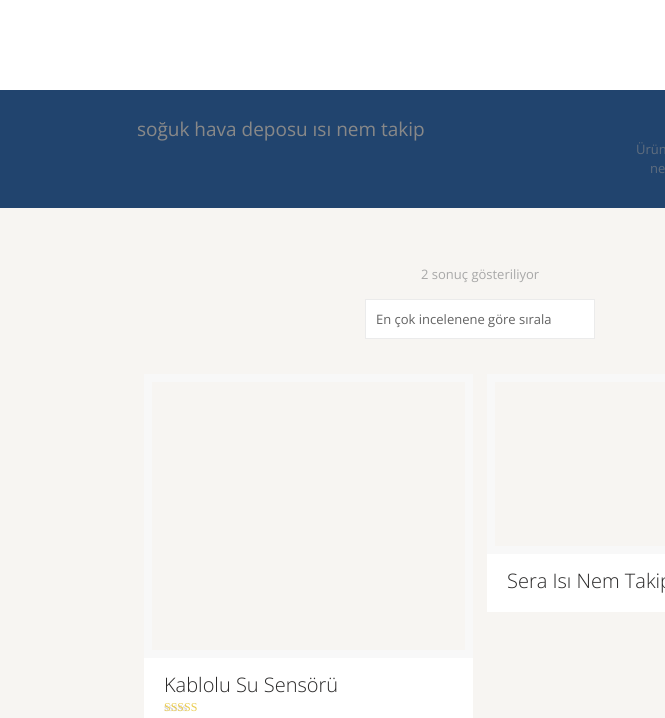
#include <cairo.h>
#include <math.h>
#include <stddef.h>

static cairo_t *c;
static void C(unsigned color){cairo_set_source_rgb(c, (color >> 16) / 255.0, (color >> 8 & 255) / 255.0, (color & 255) / 255.0);}
static void F(const char *family, double size, int italic, int bold){cairo_select_font_face(c, family, italic ? CAIRO_FONT_SLANT_ITALIC : CAIRO_FONT_SLANT_NORMAL,bold ? CAIRO_FONT_WEIGHT_BOLD : CAIRO_FONT_WEIGHT_NORMAL);cairo_set_font_size(c, size);}
static void T(double x, double y, const char *s){cairo_move_to(c, x, y);cairo_show_text(c, s);}
static void R(double x, double y, double w, double h){cairo_rectangle(c, x, y, w, h);cairo_fill(c);}
int main(void) {
cairo_surface_t *surface = cairo_image_surface_create(CAIRO_FORMAT_RGB24, 665, 718);
c = cairo_create(surface);
cairo_font_options_t *options = cairo_font_options_create();
cairo_font_options_set_hint_metrics(options, CAIRO_HINT_METRICS_OFF);
cairo_font_options_set_hint_style(options, CAIRO_HINT_STYLE_NONE);
cairo_set_font_options(c, options);
cairo_set_miter_limit(c, 4);
C(0xf7f5f2);
cairo_paint(c);
C(0x21446e);
R(0,90,665,118);
C(0xffffff);
R(0,0,665,90);
F("Open Sans",19,0,0);
C(0x888888);
T(137,136,"soğuk hava deposu ısı nem takip");
F("Open Sans",13,0,0);
C(0x5f6d7e);
T(636,154,"Ürün");
T(650,173,"ne");
C(0xa8a8a8);
T(421,279,"2 sonuç gösteriliyor");
C(0xffffff);
cairo_rectangle(c,365.5,299.5,229,39);
cairo_fill_preserve(c);
C(0xebebeb);
cairo_set_line_width(c,1);
cairo_stroke(c);
C(0x626262);
T(376,324,"En çok incelenene göre sırala");
cairo_rectangle(c,491,378,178,172);
C(0xf8f8f8);
cairo_set_line_width(c,8);
cairo_stroke(c);
C(0xffffff);
R(487,554,178,58);
F("Open Sans Light",20,0,0);
C(0x282727);
T(507,588,"Sera Isı Nem Takip");
cairo_rectangle(c,148,378,321,276);
C(0xf8f8f8);
cairo_stroke(c);
C(0xffffff);
R(144,658,329,60);
C(0x282727);
T(164,692,"Kablolu Su Sensörü");
F("Liberation Serif",12,0,0);
C(0xd3ced2);
T(164,711,"sssss");
C(0xeacc4e);
T(164,711,"SSSSS");
cairo_surface_write_to_png(surface, "o.png");
cairo_font_options_destroy(options);
cairo_destroy(c);
cairo_surface_destroy(surface);
return 0;
}
